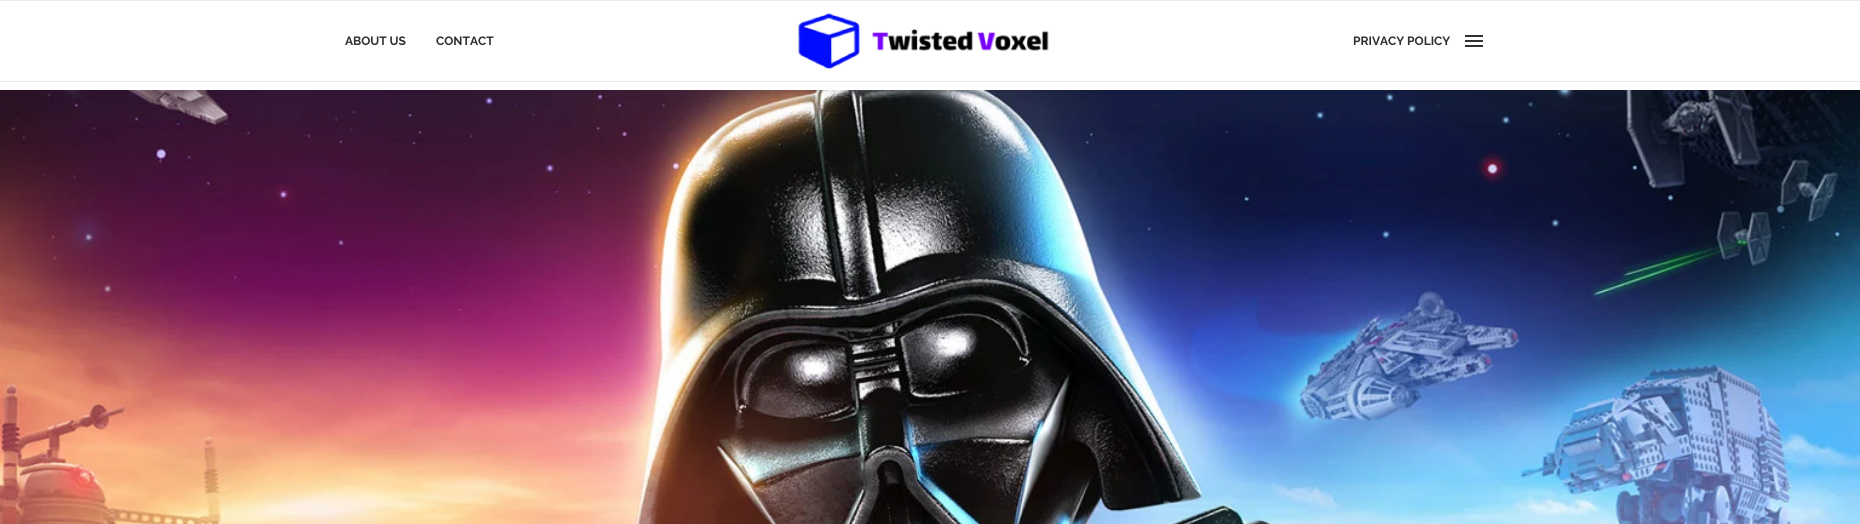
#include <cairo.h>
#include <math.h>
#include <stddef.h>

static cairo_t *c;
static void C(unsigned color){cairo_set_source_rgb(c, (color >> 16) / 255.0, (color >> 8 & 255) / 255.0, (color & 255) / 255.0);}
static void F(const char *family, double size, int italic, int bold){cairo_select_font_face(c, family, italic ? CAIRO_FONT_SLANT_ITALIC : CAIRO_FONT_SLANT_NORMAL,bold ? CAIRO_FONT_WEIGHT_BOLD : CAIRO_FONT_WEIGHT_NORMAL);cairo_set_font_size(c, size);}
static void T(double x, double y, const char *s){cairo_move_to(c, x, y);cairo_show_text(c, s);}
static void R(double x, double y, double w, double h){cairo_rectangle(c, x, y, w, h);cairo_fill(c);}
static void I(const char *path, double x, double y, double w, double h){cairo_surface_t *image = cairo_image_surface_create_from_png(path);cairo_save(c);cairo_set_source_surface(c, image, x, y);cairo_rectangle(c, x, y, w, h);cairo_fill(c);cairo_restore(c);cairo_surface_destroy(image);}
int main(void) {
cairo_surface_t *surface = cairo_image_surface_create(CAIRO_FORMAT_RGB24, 1860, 524);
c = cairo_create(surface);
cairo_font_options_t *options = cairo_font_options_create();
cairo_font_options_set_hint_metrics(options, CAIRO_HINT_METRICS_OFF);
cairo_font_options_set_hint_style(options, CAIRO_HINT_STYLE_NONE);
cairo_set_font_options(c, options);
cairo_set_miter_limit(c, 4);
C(0xffffff);
cairo_paint(c);
C(0xececec);
R(0,0,1860,1);
R(0,81,1860,1);
F("Raleway",12,0,1);
C(0x313131);
T(345,45,"ABOUT US");
T(436,45,"CONTACT");
I("1.png",798,13,251,56);
T(1353,45,"PRIVACY POLICY");
R(1465,35,18,2);
R(1465,45,18,2);
R(1465,40,18,2);
I("2.png",0,90,1860,434);
cairo_surface_write_to_png(surface, "o.png");
cairo_font_options_destroy(options);
cairo_destroy(c);
cairo_surface_destroy(surface);
return 0;
}
